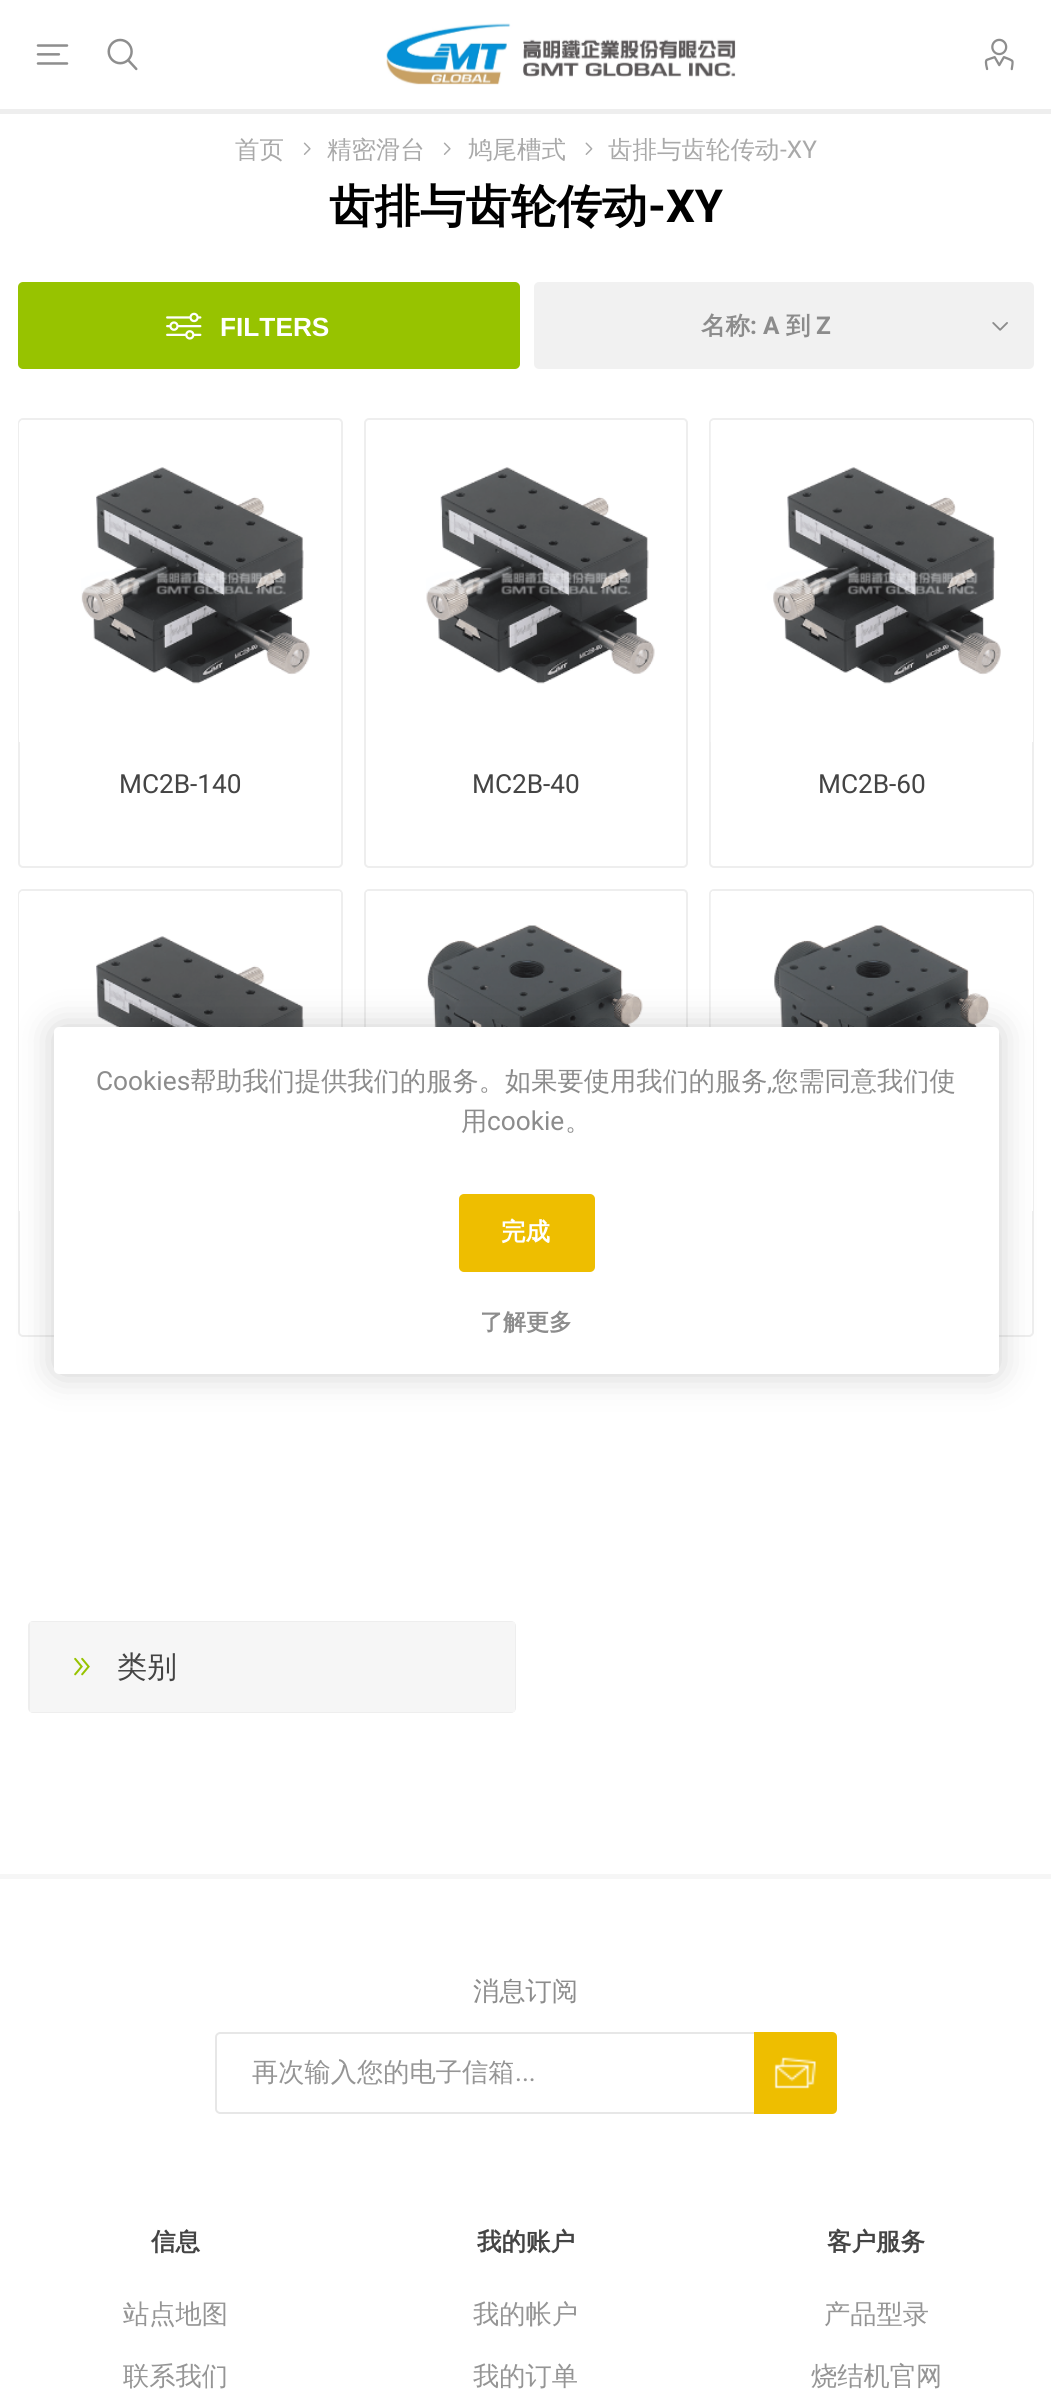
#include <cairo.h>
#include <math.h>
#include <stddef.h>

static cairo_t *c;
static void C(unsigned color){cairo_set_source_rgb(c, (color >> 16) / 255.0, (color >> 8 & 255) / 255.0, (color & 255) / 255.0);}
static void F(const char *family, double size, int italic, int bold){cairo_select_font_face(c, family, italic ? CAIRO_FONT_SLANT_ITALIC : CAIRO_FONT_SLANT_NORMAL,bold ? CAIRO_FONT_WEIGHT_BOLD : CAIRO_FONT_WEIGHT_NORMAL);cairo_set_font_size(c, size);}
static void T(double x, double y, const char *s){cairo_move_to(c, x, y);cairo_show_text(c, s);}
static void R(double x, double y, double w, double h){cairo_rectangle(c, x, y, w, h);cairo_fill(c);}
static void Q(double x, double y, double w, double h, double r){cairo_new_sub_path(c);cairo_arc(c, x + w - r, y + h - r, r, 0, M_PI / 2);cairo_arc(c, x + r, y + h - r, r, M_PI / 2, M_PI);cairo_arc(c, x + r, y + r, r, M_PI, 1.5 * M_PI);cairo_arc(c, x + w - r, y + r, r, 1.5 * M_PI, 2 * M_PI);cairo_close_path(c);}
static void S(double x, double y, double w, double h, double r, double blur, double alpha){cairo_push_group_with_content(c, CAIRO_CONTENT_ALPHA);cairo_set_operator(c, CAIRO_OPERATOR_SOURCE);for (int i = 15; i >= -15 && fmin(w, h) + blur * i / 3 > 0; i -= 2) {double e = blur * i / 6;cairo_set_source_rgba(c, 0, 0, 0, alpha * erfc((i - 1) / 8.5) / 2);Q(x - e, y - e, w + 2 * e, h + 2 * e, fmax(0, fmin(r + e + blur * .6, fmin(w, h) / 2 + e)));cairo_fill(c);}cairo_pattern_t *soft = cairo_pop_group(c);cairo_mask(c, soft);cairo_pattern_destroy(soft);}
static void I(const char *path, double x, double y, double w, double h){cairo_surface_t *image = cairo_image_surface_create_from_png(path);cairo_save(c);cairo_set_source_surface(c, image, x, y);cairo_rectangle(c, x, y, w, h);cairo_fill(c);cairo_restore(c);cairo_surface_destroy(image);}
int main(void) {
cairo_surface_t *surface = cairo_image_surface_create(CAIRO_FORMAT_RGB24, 1051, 2401);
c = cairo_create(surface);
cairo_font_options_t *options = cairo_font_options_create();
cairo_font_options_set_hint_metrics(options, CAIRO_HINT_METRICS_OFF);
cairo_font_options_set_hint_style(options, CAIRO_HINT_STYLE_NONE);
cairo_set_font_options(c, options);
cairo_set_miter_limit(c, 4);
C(0xffffff);
cairo_paint(c);
C(0xeeeeee);
R(0,109,1051,5);
I("1.png",36,44,33,21);
I("2.png",107,38,31,33);
I("3.png",386,23,350,62);
I("4.png",984,38,30,33);
F("WenQuanYi Zen Hei Medium",24.5,0,0);
C(0xa9a9a9);
T(235,158,"首页");
I("5.png",303,142,8,13);
T(327,158,"精密滑台");
I("5.png",443,142,8,13);
T(468,158,"鸠尾槽式");
I("6.png",585,142,8,13);
T(608,158,"齿排与齿轮传动");
F("Roboto",24.5,0,0);
T(780,158,"-XY");
F("WenQuanYi Zen Hei",45.5,0,1);
C(0x000000);
T(329,222,"齿排与齿轮传动");
F("Roboto",45.5,0,1);
T(648,222,"-XY");
C(0x97c300);
Q(18,282,502,87,5);
cairo_fill(c);
I("7.png",166,312,36,28);
F("Liberation Sans",26.25,0,1);
C(0xffffff);
T(220,336,"FILTERS");
C(0xf1f1f1);
Q(534,282,500,87,5);
cairo_fill(c);
I("8.png",992,322,16,9);
F("WenQuanYi Zen Hei",24.5,0,1);
C(0x8c8c8c);
T(701,334,"名称");
F("Roboto",24.5,0,1);
T(750,334,": A");
F("WenQuanYi Zen Hei",24.5,0,1);
T(786,334,"到");
F("Roboto",24.5,0,1);
T(816,334,"Z");
Q(19,419,323,448,4);
C(0xeeeeee);
cairo_stroke(c);
C(0xffffff);
cairo_new_path(c);
cairo_move_to(c,23,420);
cairo_line_to(c,337,420);
cairo_curve_to(c,339,420,341,422,341,424);
cairo_line_to(c,341,742);
cairo_line_to(c,19,742);
cairo_line_to(c,19,424);
cairo_curve_to(c,19,422,21,420,23,420);
cairo_close_path(c);
cairo_fill(c);
I("9.png",81,467,229,217);
F("Roboto",26.25,0,0);
C(0x444444);
T(119,793,"MC2B-140");
Q(365,419,322,448,4);
C(0xeeeeee);
cairo_stroke(c);
I("10.png",426,467,229,217);
C(0x444444);
T(472,793,"MC2B-40");
Q(710,419,323,448,4);
C(0xeeeeee);
cairo_stroke(c);
C(0xffffff);
cairo_new_path(c);
cairo_move_to(c,715,420);
cairo_line_to(c,1029,420);
cairo_curve_to(c,1031,420,1033,422,1033,424);
cairo_line_to(c,1033,742);
cairo_line_to(c,711,742);
cairo_line_to(c,711,424);
cairo_curve_to(c,711,422,713,420,715,420);
cairo_close_path(c);
cairo_fill(c);
I("11.png",710,421,291,321);
C(0x444444);
T(818,793,"MC2B-60");
Q(19,890,323,446,4);
C(0xeeeeee);
cairo_stroke(c);
C(0xffffff);
cairo_new_path(c);
cairo_move_to(c,23,891);
cairo_line_to(c,337,891);
cairo_curve_to(c,339,891,341,893,341,895);
cairo_line_to(c,341,1211);
cairo_line_to(c,19,1211);
cairo_line_to(c,19,895);
cairo_curve_to(c,19,893,21,891,23,891);
cairo_close_path(c);
cairo_fill(c);
I("12.png",81,891,260,136);
Q(365,890,322,446,4);
C(0xeeeeee);
cairo_stroke(c);
I("13.png",366,891,285,136);
Q(710,890,323,446,4);
cairo_stroke(c);
C(0xffffff);
cairo_new_path(c);
cairo_move_to(c,715,891);
cairo_line_to(c,1029,891);
cairo_curve_to(c,1031,891,1033,893,1033,895);
cairo_line_to(c,1033,1211);
cairo_line_to(c,711,1211);
cairo_line_to(c,711,895);
cairo_curve_to(c,711,893,713,891,715,891);
cairo_close_path(c);
cairo_fill(c);
I("14.png",710,891,288,138);
Q(29,1622,486,90,4);
C(0xeeeeee);
cairo_stroke(c);
C(0xf6f6f6);
R(30,1622,485,90);
I("15.png",74,1657,16,19);
F("WenQuanYi Zen Hei Medium",30,0,0);
C(0x444444);
T(117,1677,"类别");
C(0xf6f6f6);
R(0,1874,1051,5);
F("WenQuanYi Zen Hei Medium",26.25,0,0);
C(0x8c8c8c);
T(473,2000,"消息订阅");
C(0xe7e7e7);
cairo_set_fill_rule(c,CAIRO_FILL_RULE_EVEN_ODD);
cairo_new_path(c);
cairo_move_to(c,220,2032);
cairo_line_to(c,754,2032);
cairo_line_to(c,754,2114);
cairo_line_to(c,220,2114);
cairo_curve_to(c,218,2114,215,2112,215,2109);
cairo_line_to(c,215,2037);
cairo_curve_to(c,215,2034,218,2032,220,2032);
cairo_close_path(c);
cairo_move_to(c,220,2034);
cairo_line_to(c,754,2034);
cairo_line_to(c,754,2112);
cairo_line_to(c,220,2112);
cairo_curve_to(c,219,2112,217,2111,217,2109);
cairo_line_to(c,217,2037);
cairo_curve_to(c,217,2035,219,2034,220,2034);
cairo_close_path(c);
cairo_fill(c);
C(0x959595);
T(252,2081,"再次输入您的电子信箱");
F("Roboto",26.25,0,0);
T(515,2081,"...");
C(0xeebe00);
cairo_new_path(c);
cairo_move_to(c,754,2032);
cairo_line_to(c,832,2032);
cairo_curve_to(c,835,2032,837,2034,837,2037);
cairo_line_to(c,837,2109);
cairo_curve_to(c,837,2112,835,2114,832,2114);
cairo_line_to(c,754,2114);
cairo_close_path(c);
cairo_fill(c);
I("16.png",774,2057,42,32);
F("WenQuanYi Zen Hei",24.5,0,1);
C(0x444444);
T(151,2250,"信息");
F("WenQuanYi Zen Hei Medium",26.25,0,0);
C(0x959595);
T(123,2323,"站点地图");
T(123,2385,"联系我们");
F("WenQuanYi Zen Hei",24.5,0,1);
C(0x444444);
T(477,2250,"我的账户");
F("WenQuanYi Zen Hei Medium",26.25,0,0);
C(0x959595);
T(473,2323,"我的帐户");
T(473,2385,"我的订单");
F("WenQuanYi Zen Hei",24.5,0,1);
C(0x444444);
T(827,2250,"客户服务");
F("WenQuanYi Zen Hei Medium",26.25,0,0);
C(0x959595);
T(824,2323,"产品型录");
T(811,2385,"烧结机官网");
C(0x000000);
S(54,1027,945,347,5,17.5,.2);
C(0xffffff);
Q(54,1027,945,347,5);
cairo_fill(c);
F("Roboto",26.25,0,0);
C(0x8c8c8c);
T(96,1090,"Cookies");
F("WenQuanYi Zen Hei Medium",26.25,0,0);
T(190,1090,"帮助我们提供我们的服务。如果要使用我们的服务");
F("Roboto",26.25,0,0);
T(767,1090,",");
F("WenQuanYi Zen Hei Medium",26.25,0,0);
T(772,1090,"您需同意我们使");
T(461,1130,"用");
F("Roboto",26.25,0,0);
T(487,1130,"cookie");
F("WenQuanYi Zen Hei Medium",26.25,0,0);
T(565,1130,"。");
C(0xeebe00);
Q(459,1194,136,78,5);
cairo_fill(c);
F("WenQuanYi Zen Hei",24.5,0,1);
C(0xffffff);
T(501,1240,"完成");
F("WenQuanYi Zen Hei",23,0,1);
C(0x8c8c8c);
T(480,1330,"了解更多");
cairo_surface_write_to_png(surface, "o.png");
cairo_font_options_destroy(options);
cairo_destroy(c);
cairo_surface_destroy(surface);
return 0;
}
